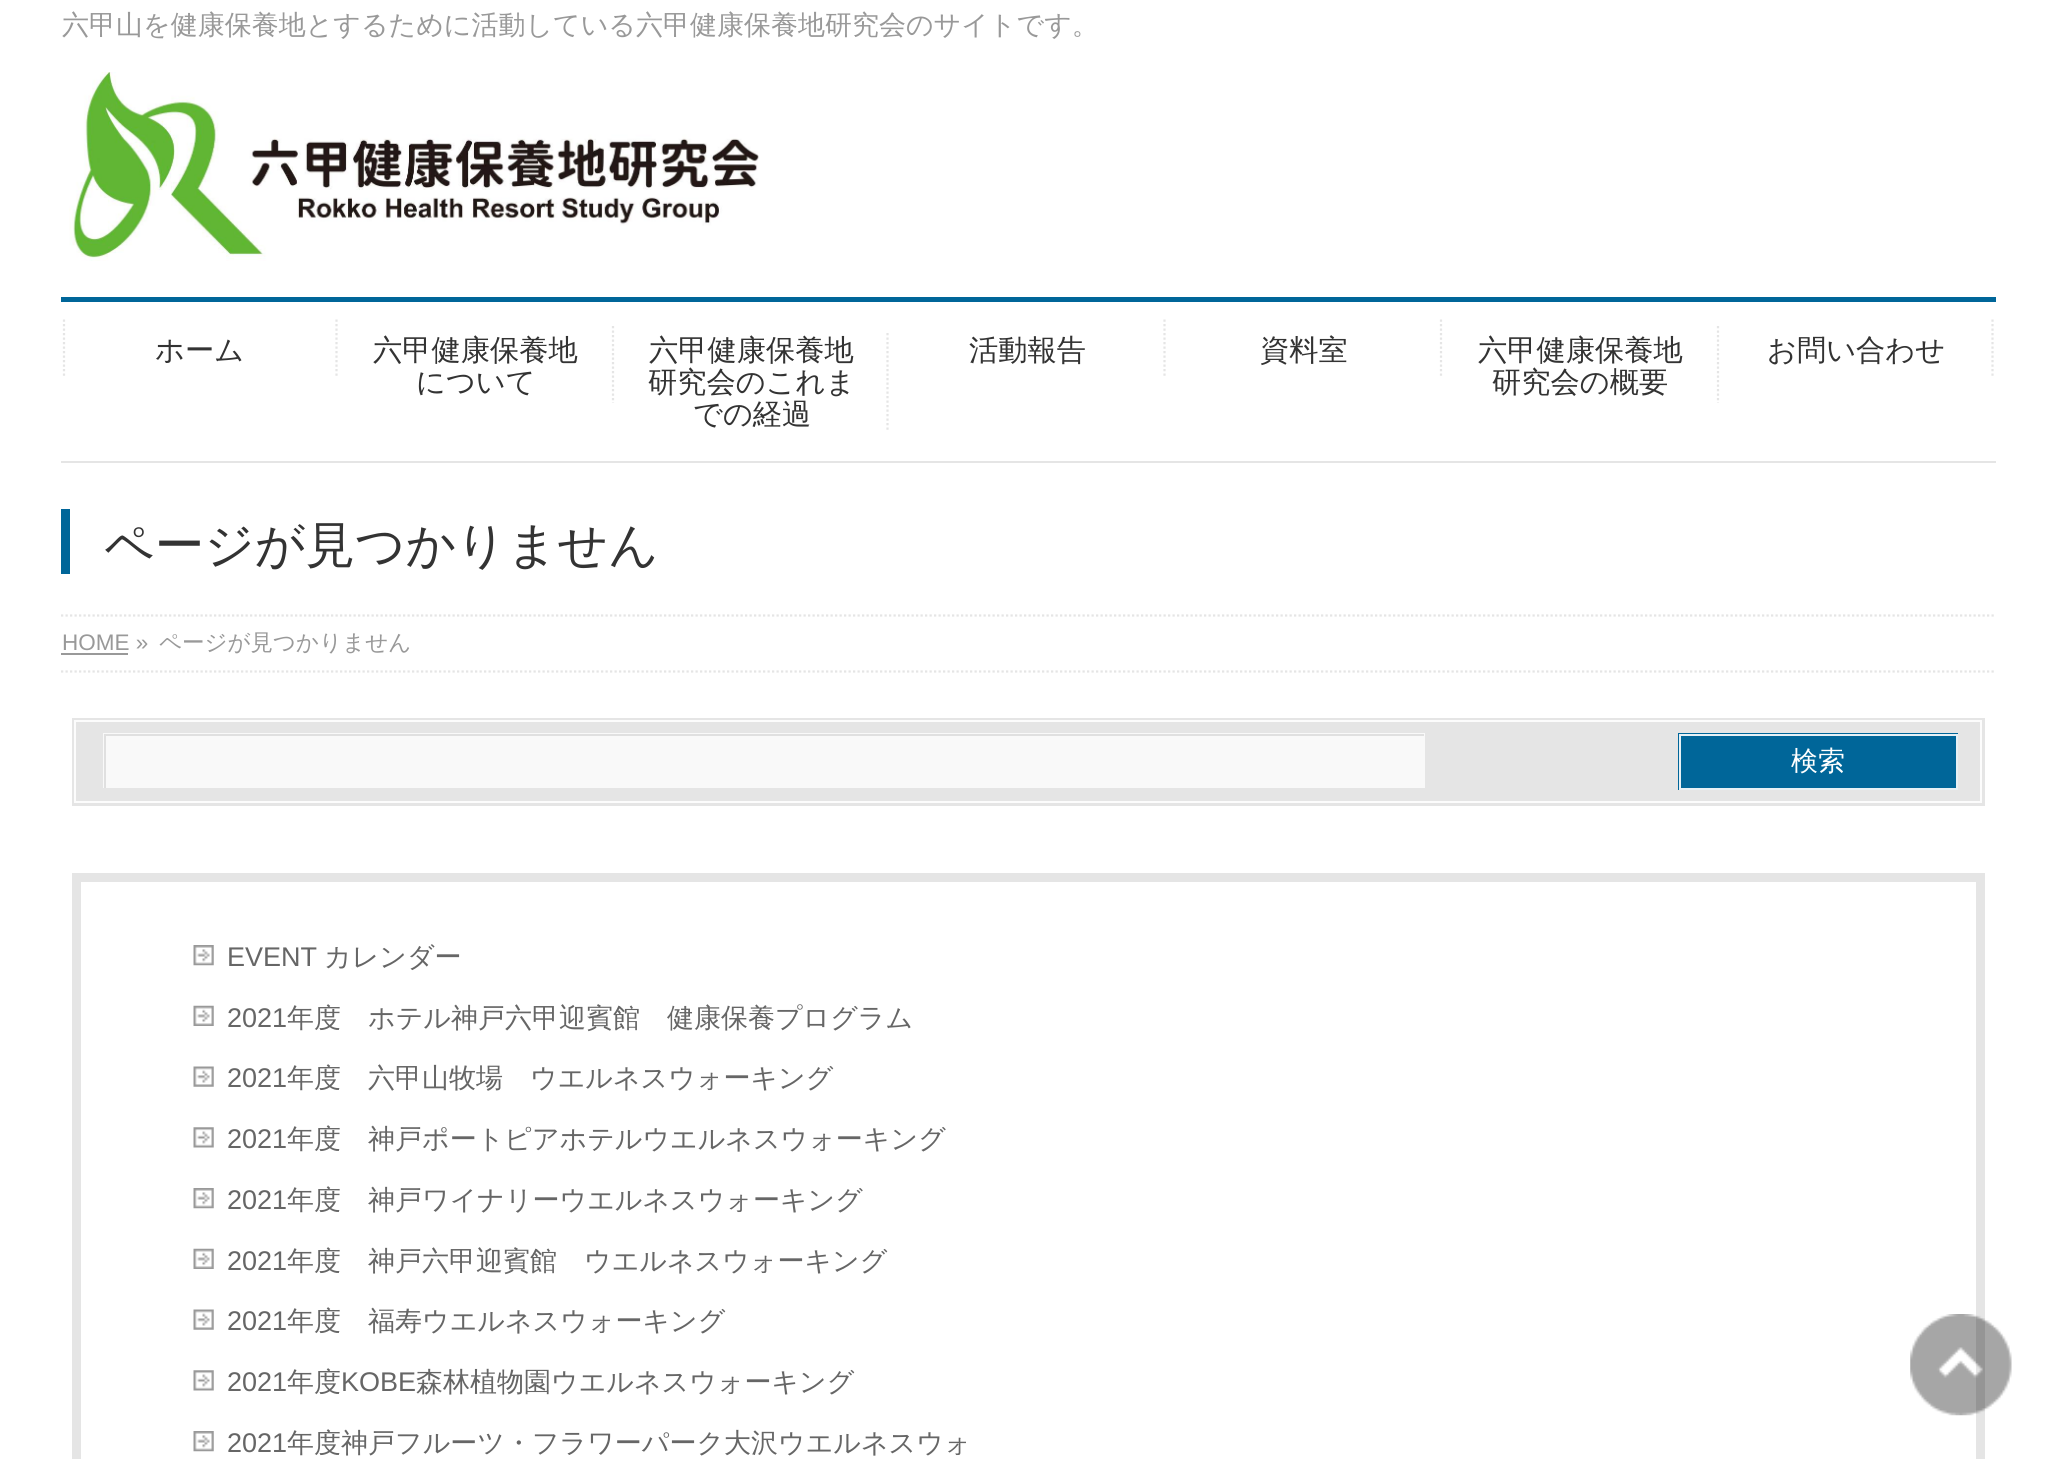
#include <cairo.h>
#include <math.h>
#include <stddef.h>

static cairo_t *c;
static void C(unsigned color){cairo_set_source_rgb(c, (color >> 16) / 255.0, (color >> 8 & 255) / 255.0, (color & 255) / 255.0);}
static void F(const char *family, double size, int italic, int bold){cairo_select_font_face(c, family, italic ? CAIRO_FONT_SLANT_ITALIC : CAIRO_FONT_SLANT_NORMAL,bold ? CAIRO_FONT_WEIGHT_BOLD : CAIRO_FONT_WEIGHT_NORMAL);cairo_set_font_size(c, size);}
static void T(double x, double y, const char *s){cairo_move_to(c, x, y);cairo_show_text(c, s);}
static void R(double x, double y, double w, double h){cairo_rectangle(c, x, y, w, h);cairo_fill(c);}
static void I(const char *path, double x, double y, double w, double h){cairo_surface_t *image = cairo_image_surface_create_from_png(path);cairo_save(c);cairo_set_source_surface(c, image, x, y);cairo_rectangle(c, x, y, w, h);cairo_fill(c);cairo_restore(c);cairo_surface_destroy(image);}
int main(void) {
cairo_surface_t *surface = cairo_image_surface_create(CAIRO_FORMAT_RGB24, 2056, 1459);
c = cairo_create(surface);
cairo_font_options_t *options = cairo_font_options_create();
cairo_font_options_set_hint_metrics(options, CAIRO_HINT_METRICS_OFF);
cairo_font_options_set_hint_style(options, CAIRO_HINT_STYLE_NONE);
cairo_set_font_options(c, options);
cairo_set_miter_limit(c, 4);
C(0xffffff);
cairo_paint(c);
F("WenQuanYi Zen Hei Medium",27,0,0);
C(0x999999);
T(62,34,"六甲山を健康保養地とするために活動している六甲健康保養地研究会のサイトです。");
I("1.png",69,72,690,189);
C(0x006699);
R(61,297,1935,5);
C(0xe5e5e5);
R(61,461,1935,2);
cairo_new_path(c);
cairo_move_to(c,64,319.5);
cairo_line_to(c,64,378);
cairo_set_line_width(c,2.2);
cairo_set_dash(c,(double[]){2.25,2.25},2,0);
cairo_stroke(c);
F("WenQuanYi Zen Hei Medium",29.25,0,0);
C(0x333333);
T(155,360,"ホーム");
cairo_new_path(c);
cairo_move_to(c,336.5,319.5);
cairo_line_to(c,336.5,378);
C(0xe5e5e5);
cairo_stroke(c);
C(0x333333);
T(373,360,"六甲健康保養地");
T(416,392,"について");
cairo_new_path(c);
cairo_move_to(c,613,326);
cairo_line_to(c,613,403);
C(0xe5e5e5);
cairo_stroke(c);
C(0x333333);
T(649,360,"六甲健康保養地");
T(648,392,"研究会のこれま");
T(693,424,"での経過");
cairo_new_path(c);
cairo_move_to(c,887.5,333);
cairo_line_to(c,887.5,430);
C(0xe5e5e5);
cairo_stroke(c);
C(0x333333);
T(969,360,"活動報告");
cairo_new_path(c);
cairo_move_to(c,1164.5,319.5);
cairo_line_to(c,1164.5,378);
C(0xe5e5e5);
cairo_stroke(c);
C(0x333333);
T(1260,360,"資料室");
cairo_new_path(c);
cairo_move_to(c,1441,319.5);
cairo_line_to(c,1441,378);
C(0xe5e5e5);
cairo_stroke(c);
C(0x333333);
T(1478,360,"六甲健康保養地");
T(1492,392,"研究会の概要");
cairo_new_path(c);
cairo_move_to(c,1718,326);
cairo_line_to(c,1718,403);
C(0xe5e5e5);
cairo_stroke(c);
C(0x333333);
T(1767,360,"お問い合わせ");
cairo_new_path(c);
cairo_move_to(c,1992.5,319.5);
cairo_line_to(c,1992.5,378);
C(0xe5e5e5);
cairo_stroke(c);
C(0x006699);
R(61,509,9,65);
F("WenQuanYi Zen Hei Medium",49.5,0,0);
C(0x333333);
T(104,562,"ページが見つかりません");
cairo_new_path(c);
cairo_move_to(c,61,615.5);
cairo_line_to(c,1996,615.5);
C(0xe5e5e5);
cairo_stroke(c);
cairo_new_path(c);
cairo_move_to(c,61,671.5);
cairo_line_to(c,1996,671.5);
cairo_stroke(c);
F("Liberation Sans",22.5,0,0);
C(0x999999);
T(62,650,"HOME »");
R(61,653,67,2);
F("WenQuanYi Zen Hei Medium",22.5,0,0);
T(159,650,"ページが見つかりません");
C(0xe5e5e5);
R(72,718,1913,88);
cairo_rectangle(c,75,721,1906,81);
C(0xfcfcfc);
cairo_set_line_width(c,2);
cairo_set_dash(c,NULL,0,0);
cairo_stroke(c);
C(0xf9f9f9);
R(103,733,1322,55);
cairo_save(c);
cairo_rectangle(c,104,734,1320,54);
cairo_clip(c);
C(0xe0e0e0);
cairo_set_fill_rule(c,CAIRO_FILL_RULE_EVEN_ODD);
cairo_new_path(c);
cairo_move_to(c,-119,511);
cairo_line_to(c,1647,511);
cairo_line_to(c,1647,1010);
cairo_line_to(c,-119,1010);
cairo_close_path(c);
cairo_move_to(c,106,736);
cairo_line_to(c,1426,736);
cairo_line_to(c,1426,790);
cairo_line_to(c,106,790);
cairo_close_path(c);
cairo_fill(c);
cairo_restore(c);
C(0x006699);
R(1678,733,280,57);
cairo_rectangle(c,1680,735,277,54);
C(0xe6f0f5);
cairo_stroke(c);
F("WenQuanYi Zen Hei Medium",27,0,0);
C(0xffffff);
T(1791,770,"検索");
cairo_rectangle(c,76.5,877.5,1904,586);
C(0xe5e5e5);
cairo_set_line_width(c,9);
cairo_stroke(c);
I("2.png",193,945,21,21);
F("Liberation Sans",27,0,0);
C(0x666666);
T(227,966,"EVENT");
F("WenQuanYi Zen Hei Medium",27,0,0);
T(324,966,"カレンダー");
I("3.png",193,1005,21,21);
F("Liberation Sans",27,0,0);
T(227,1027,"2021");
F("WenQuanYi Zen Hei Medium",27,0,0);
T(287,1027,"年度　ホテル神戸六甲迎賓館　健康保養プログラム");
I("4.png",193,1066,21,21);
F("Liberation Sans",27,0,0);
T(227,1087,"2021");
F("WenQuanYi Zen Hei Medium",27,0,0);
T(287,1087,"年度　六甲山牧場　ウエルネスウォーキング");
I("5.png",193,1127,21,21);
F("Liberation Sans",27,0,0);
T(227,1148,"2021");
F("WenQuanYi Zen Hei Medium",27,0,0);
T(287,1148,"年度　神戸ポートピアホテルウエルネスウォーキング");
I("2.png",193,1188,21,21);
F("Liberation Sans",27,0,0);
T(227,1209,"2021");
F("WenQuanYi Zen Hei Medium",27,0,0);
T(287,1209,"年度　神戸ワイナリーウエルネスウォーキング");
I("3.png",193,1248,21,21);
F("Liberation Sans",27,0,0);
T(227,1270,"2021");
F("WenQuanYi Zen Hei Medium",27,0,0);
T(287,1270,"年度　神戸六甲迎賓館　ウエルネスウォーキング");
I("4.png",193,1309,21,21);
F("Liberation Sans",27,0,0);
T(227,1330,"2021");
F("WenQuanYi Zen Hei Medium",27,0,0);
T(287,1330,"年度　福寿ウエルネスウォーキング");
I("5.png",193,1370,21,21);
F("Liberation Sans",27,0,0);
T(227,1391,"2021");
F("WenQuanYi Zen Hei Medium",27,0,0);
T(287,1391,"年度");
F("Liberation Sans",27,0,0);
T(341,1391,"KOBE");
F("WenQuanYi Zen Hei Medium",27,0,0);
T(416,1391,"森林植物園ウエルネスウォーキング");
I("2.png",193,1431,21,21);
F("Liberation Sans",27,0,0);
T(227,1452,"2021");
F("WenQuanYi Zen Hei Medium",27,0,0);
T(287,1452,"年度神戸フルーツ・フラワーパーク大沢ウエルネスウォ");
I("6.png",1910,1314,102,102);
cairo_surface_write_to_png(surface, "o.png");
cairo_font_options_destroy(options);
cairo_destroy(c);
cairo_surface_destroy(surface);
return 0;
}
